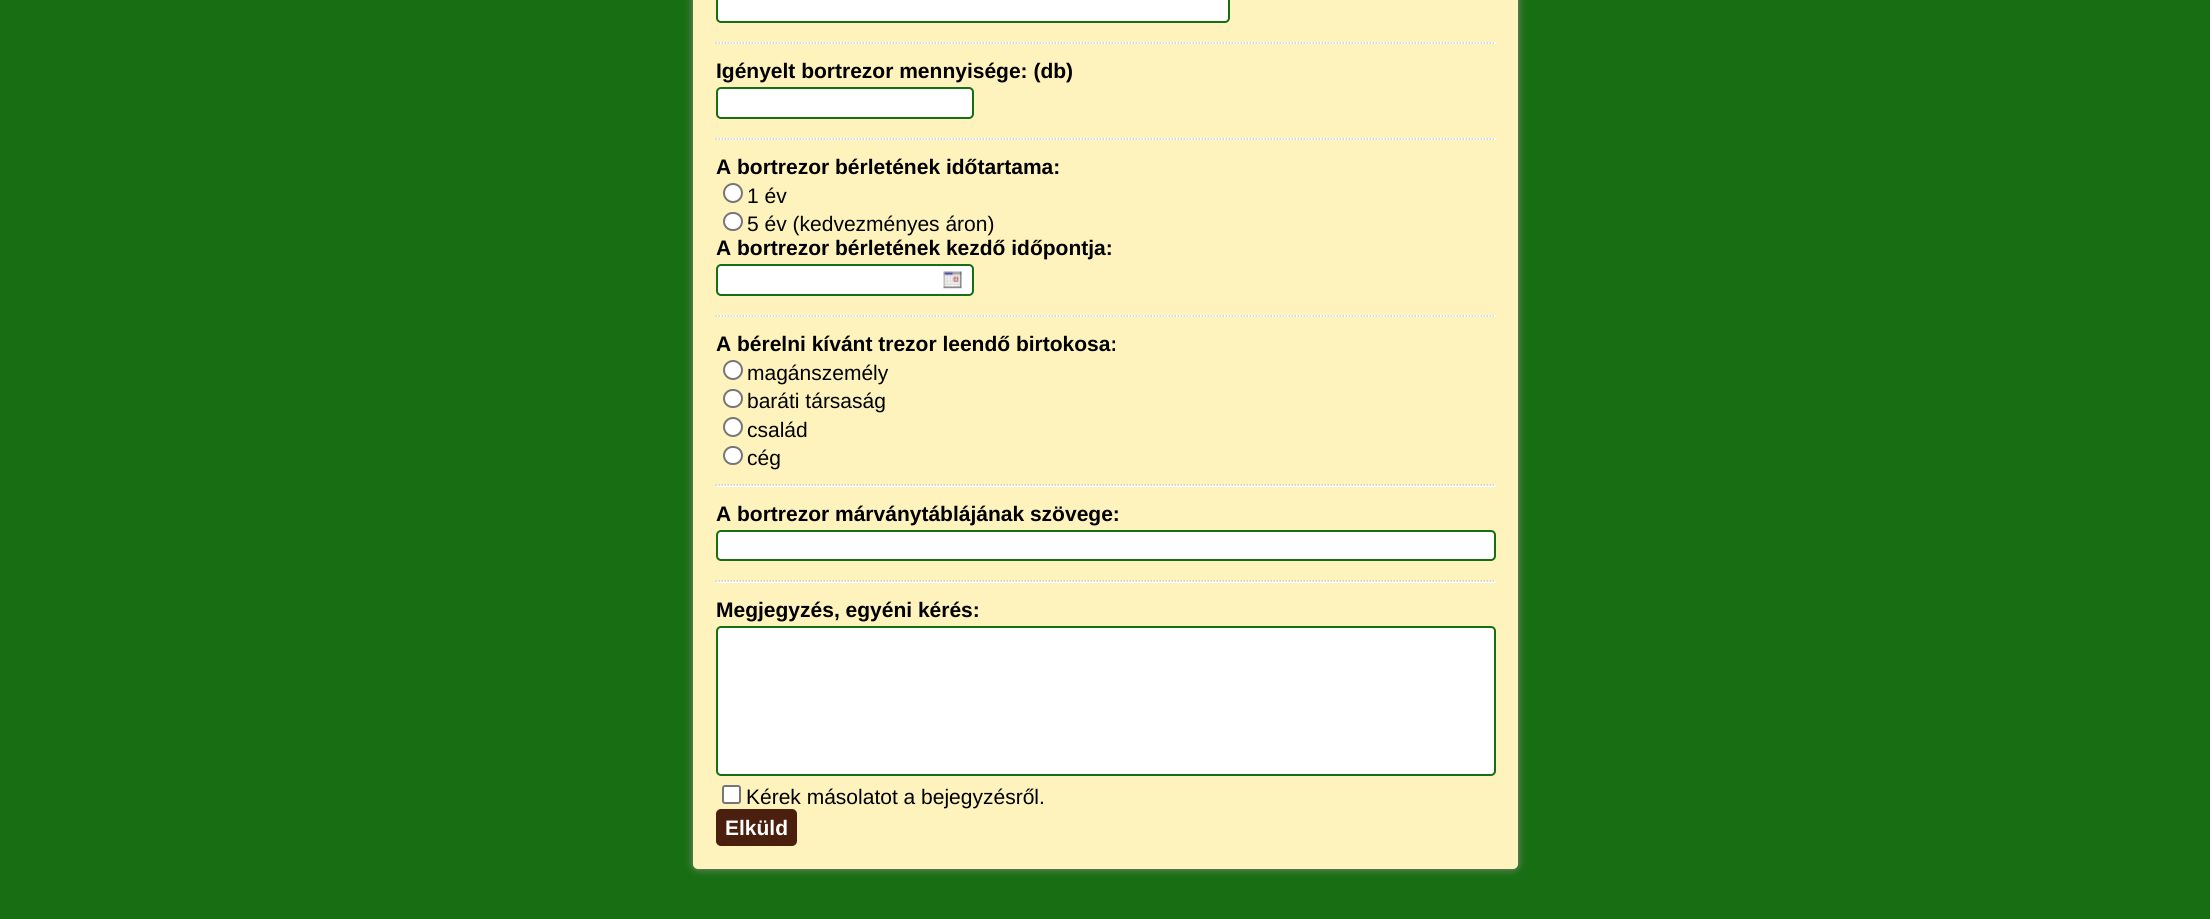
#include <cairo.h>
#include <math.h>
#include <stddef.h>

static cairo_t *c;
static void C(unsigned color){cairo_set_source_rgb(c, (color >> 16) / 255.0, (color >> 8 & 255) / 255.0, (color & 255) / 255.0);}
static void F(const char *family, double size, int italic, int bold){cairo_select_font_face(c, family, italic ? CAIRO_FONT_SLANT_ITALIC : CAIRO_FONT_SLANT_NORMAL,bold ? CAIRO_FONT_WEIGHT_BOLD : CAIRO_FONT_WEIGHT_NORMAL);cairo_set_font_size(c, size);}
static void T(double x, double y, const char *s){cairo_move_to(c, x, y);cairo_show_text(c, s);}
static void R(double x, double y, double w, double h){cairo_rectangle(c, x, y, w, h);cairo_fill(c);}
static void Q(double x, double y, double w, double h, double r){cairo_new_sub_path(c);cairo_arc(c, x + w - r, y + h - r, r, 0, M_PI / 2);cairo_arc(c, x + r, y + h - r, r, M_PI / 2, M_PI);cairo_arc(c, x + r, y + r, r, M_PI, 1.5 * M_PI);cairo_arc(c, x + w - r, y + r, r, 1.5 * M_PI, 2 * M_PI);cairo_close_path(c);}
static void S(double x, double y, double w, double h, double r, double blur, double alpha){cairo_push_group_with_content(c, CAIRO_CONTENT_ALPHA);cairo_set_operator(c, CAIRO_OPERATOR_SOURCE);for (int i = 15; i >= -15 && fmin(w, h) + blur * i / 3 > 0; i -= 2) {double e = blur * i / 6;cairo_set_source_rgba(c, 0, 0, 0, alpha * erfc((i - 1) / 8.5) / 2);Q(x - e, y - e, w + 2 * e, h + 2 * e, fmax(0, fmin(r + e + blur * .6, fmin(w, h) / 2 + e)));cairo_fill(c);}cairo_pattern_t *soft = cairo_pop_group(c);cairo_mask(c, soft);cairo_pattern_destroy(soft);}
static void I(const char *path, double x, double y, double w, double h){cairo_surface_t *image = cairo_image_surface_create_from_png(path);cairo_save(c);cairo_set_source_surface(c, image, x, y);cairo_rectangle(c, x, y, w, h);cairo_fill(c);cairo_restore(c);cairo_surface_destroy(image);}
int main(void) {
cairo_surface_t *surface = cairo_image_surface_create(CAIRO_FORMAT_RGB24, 2210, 919);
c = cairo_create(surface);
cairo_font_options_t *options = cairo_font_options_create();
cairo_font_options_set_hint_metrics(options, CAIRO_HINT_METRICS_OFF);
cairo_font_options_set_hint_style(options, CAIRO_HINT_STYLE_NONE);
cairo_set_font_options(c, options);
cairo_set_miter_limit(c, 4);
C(0x186e12);
cairo_paint(c);
C(0x888888);
S(693,-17,825,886,5,4,1);
C(0xfef3bc);
Q(693,-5,825,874,5);
cairo_fill(c);
C(0xffffff);
Q(717,-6,512,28,4);
cairo_fill_preserve(c);
C(0x186e12);
cairo_stroke(c);
C(0xffffff);
R(716,42,780,2);
cairo_new_path(c);
cairo_move_to(c,715.5,43);
cairo_line_to(c,1495.5,43);
C(0xcccccc);
cairo_set_line_width(c,1.5);
cairo_set_dash(c,(double[]){1.5,1.5},2,0);
cairo_stroke(c);
F("Liberation Sans",21,0,1);
C(0x000000);
T(716,78,"Igényelt bortrezor mennyisége: (db)");
C(0xffffff);
Q(717,88,256,30,4);
cairo_fill_preserve(c);
C(0x186e12);
cairo_set_line_width(c,2);
cairo_set_dash(c,NULL,0,0);
cairo_stroke(c);
C(0xffffff);
R(716,138,780,2);
cairo_new_path(c);
cairo_move_to(c,715.5,139);
cairo_line_to(c,1495.5,139);
C(0xcccccc);
cairo_set_line_width(c,1.5);
cairo_set_dash(c,(double[]){1.5,1.5},2,0);
cairo_stroke(c);
C(0x000000);
T(716,174,"A bortrezor bérletének időtartama:");
C(0xffffff);
cairo_new_path(c);
cairo_arc(c,733,193,9,0,2 * M_PI);
cairo_fill_preserve(c);
C(0x767676);
cairo_set_line_width(c,2);
cairo_set_dash(c,NULL,0,0);
cairo_stroke(c);
F("Liberation Sans",21,0,0);
C(0x000000);
T(747,203,"1 év");
C(0xffffff);
Q(724,213,18,17,8.5);
cairo_fill_preserve(c);
C(0x767676);
cairo_stroke(c);
C(0x000000);
T(747,231,"5 év (kedvezményes áron)");
F("Liberation Sans",21,0,1);
T(716,255,"A bortrezor bérletének kezdő időpontja:");
C(0xffffff);
Q(716,264,258,32,5);
cairo_fill(c);
I("1.png",943,271,19,18);
Q(717,265,256,30,4);
C(0x186e12);
cairo_stroke(c);
C(0xffffff);
R(716,315,780,2);
cairo_new_path(c);
cairo_move_to(c,715.5,316);
cairo_line_to(c,1495.5,316);
C(0xcccccc);
cairo_set_line_width(c,1.5);
cairo_set_dash(c,(double[]){1.5,1.5},2,0);
cairo_stroke(c);
C(0x000000);
T(716,351,"A bérelni kívánt trezor leendő birtokosa:");
C(0xffffff);
cairo_new_path(c);
cairo_arc(c,733,370,9,0,2 * M_PI);
cairo_fill_preserve(c);
C(0x767676);
cairo_set_line_width(c,2);
cairo_set_dash(c,NULL,0,0);
cairo_stroke(c);
F("Liberation Sans",21,0,0);
C(0x000000);
T(747,380,"magánszemély");
C(0xffffff);
Q(724,390,18,17,8.5);
cairo_fill_preserve(c);
C(0x767676);
cairo_stroke(c);
C(0x000000);
T(747,408,"baráti társaság");
C(0xffffff);
cairo_new_path(c);
cairo_arc(c,733,427,9,0,2 * M_PI);
cairo_fill_preserve(c);
C(0x767676);
cairo_stroke(c);
C(0x000000);
T(747,437,"család");
C(0xffffff);
Q(724,447,18,17,8.5);
cairo_fill_preserve(c);
C(0x767676);
cairo_stroke(c);
C(0x000000);
T(747,465,"cég");
C(0xffffff);
R(716,485,780,2);
cairo_new_path(c);
cairo_move_to(c,715.5,485);
cairo_line_to(c,1495.5,485);
C(0xcccccc);
cairo_set_line_width(c,1.5);
cairo_set_dash(c,(double[]){1.5,1.5},2,0);
cairo_stroke(c);
F("Liberation Sans",21,0,1);
C(0x000000);
T(716,521,"A bortrezor márványtáblájának szövege:");
C(0xffffff);
Q(717,531,778,29,4);
cairo_fill_preserve(c);
C(0x186e12);
cairo_set_line_width(c,2);
cairo_set_dash(c,NULL,0,0);
cairo_stroke(c);
C(0xffffff);
R(716,581,780,2);
cairo_new_path(c);
cairo_move_to(c,715.5,581);
cairo_line_to(c,1495.5,581);
C(0xcccccc);
cairo_set_line_width(c,1.5);
cairo_set_dash(c,(double[]){1.5,1.5},2,0);
cairo_stroke(c);
C(0x000000);
T(716,617,"Megjegyzés, egyéni kérés:");
C(0xffffff);
Q(717,627,778,148,4);
cairo_fill_preserve(c);
C(0x186e12);
cairo_set_line_width(c,2);
cairo_set_dash(c,NULL,0,0);
cairo_stroke(c);
C(0xffffff);
Q(723,786,17,17,2);
cairo_fill_preserve(c);
C(0x767676);
cairo_stroke(c);
F("Liberation Sans",21,0,0);
C(0x000000);
T(746,804,"Kérek másolatot a bejegyzésről.");
C(0x4a1f0d);
Q(716,809,81,37,5);
cairo_fill(c);
F("Liberation Sans",21,0,1);
C(0xffffff);
T(725,835,"Elküld");
cairo_surface_write_to_png(surface, "o.png");
cairo_font_options_destroy(options);
cairo_destroy(c);
cairo_surface_destroy(surface);
return 0;
}
